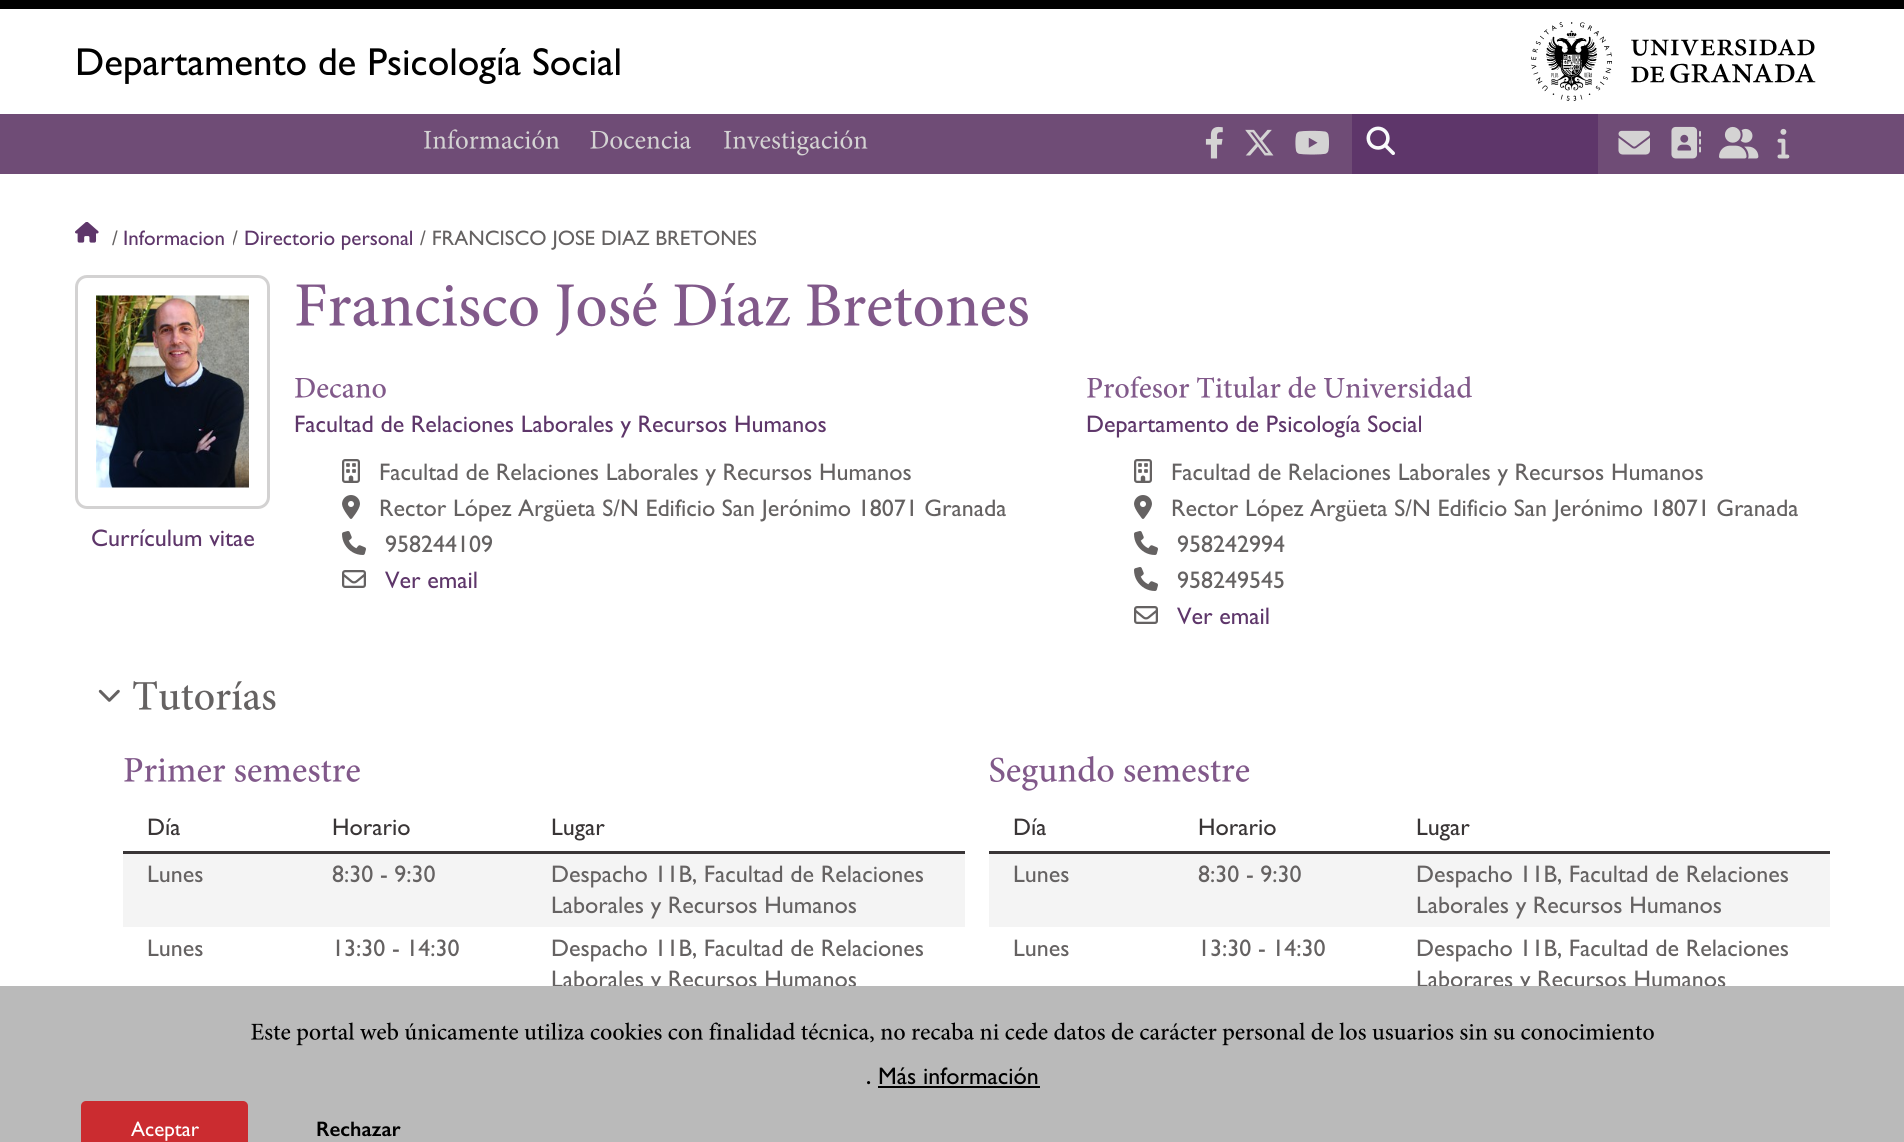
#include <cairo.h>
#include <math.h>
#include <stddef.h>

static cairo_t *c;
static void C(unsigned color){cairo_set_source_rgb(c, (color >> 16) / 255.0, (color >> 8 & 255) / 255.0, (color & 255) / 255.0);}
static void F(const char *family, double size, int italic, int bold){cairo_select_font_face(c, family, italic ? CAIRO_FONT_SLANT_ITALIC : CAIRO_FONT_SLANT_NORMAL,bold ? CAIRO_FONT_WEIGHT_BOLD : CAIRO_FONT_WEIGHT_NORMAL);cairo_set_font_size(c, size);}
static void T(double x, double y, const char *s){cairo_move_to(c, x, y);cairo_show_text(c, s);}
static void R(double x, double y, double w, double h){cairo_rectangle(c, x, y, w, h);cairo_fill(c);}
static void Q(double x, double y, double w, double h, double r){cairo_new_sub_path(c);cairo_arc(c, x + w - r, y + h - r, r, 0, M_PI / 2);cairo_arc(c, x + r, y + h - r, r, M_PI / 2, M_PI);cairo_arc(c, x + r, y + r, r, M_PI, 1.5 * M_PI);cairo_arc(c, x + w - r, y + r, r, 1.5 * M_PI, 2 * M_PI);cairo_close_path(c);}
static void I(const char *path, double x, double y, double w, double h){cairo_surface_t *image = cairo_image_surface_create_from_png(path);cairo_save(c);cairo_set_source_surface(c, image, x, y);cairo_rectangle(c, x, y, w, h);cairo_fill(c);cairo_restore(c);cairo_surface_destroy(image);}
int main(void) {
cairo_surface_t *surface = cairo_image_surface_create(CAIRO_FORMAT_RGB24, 1904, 1142);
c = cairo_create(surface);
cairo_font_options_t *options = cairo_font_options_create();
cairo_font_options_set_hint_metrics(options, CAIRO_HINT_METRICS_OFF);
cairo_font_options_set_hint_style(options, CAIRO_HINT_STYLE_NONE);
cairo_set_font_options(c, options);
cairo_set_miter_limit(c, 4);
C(0xffffff);
cairo_paint(c);
C(0x010101);
R(0,0,1904,9);
C(0x6f4c76);
R(0,114,1904,60);
F("Gill Sans",39,0,0);
C(0x000000);
T(75,75,"Departamento de Psicología Social");
I("1.png",1531,22,285,79);
I("2.png",424,129,136,20);
I("3.png",590,130,101,19);
I("4.png",724,130,144,26);
I("5.png",1205,126,18,33);
I("6.png",1245,129,29,27);
I("7.png",1295,130,34,25);
C(0x5e366a);
R(1352,114,246,60);
I("8.png",1366,126,29,29);
I("9.png",1618,130,32,25);
I("10.png",1671,126,30,33);
I("11.png",1719,126,40,33);
I("12.png",1777,128,13,31);
I("13.png",75,222,24,21);
F("Gill Sans",21,0,0);
C(0x656262);
T(112,245,"/");
C(0x5e366a);
T(123,245,"Informacion");
cairo_save(c);
cairo_rectangle(c,233,222,181,30);
cairo_clip(c);
C(0x656262);
T(232,245,"/");
cairo_restore(c);
T(244,245,"Directorio personal");
C(0x656262);
T(420,245,"/ FRANCISCO JOSE DIAZ BRETONES");
I("14.png",296,282,732,54);
Q(76.5,276.5,192,231,10.5);
C(0xd3d2d2);
cairo_set_line_width(c,3);
cairo_stroke(c);
I("15.png",96,295,153,193);
F("Gill Sans",24,0,0);
C(0x5e366a);
T(91,546,"Currículum vitae");
I("16.png",295,378,91,20);
T(294,432,"Facultad de Relaciones Laborales y Recursos Humanos");
I("17.png",342,459,18,24);
C(0x656262);
T(379,480,"Facultad de Relaciones Laborales y Recursos Humanos");
I("18.png",342,495,18,24);
T(379,516,"Rector López Argüeta S/N Edificio San Jerónimo 18071 Granada");
I("19.png",342,531,24,24);
T(385,552,"958244109");
I("20.png",342,570,24,18);
C(0x5e366a);
T(385,588,"Ver email");
I("21.png",1087,376,385,22);
T(1086,432,"Departamento de Psicología Social");
I("17.png",1134,459,18,24);
C(0x656262);
T(1171,480,"Facultad de Relaciones Laborales y Recursos Humanos");
I("18.png",1134,495,18,24);
T(1171,516,"Rector López Argüeta S/N Edificio San Jerónimo 18071 Granada");
I("19.png",1134,531,24,24);
T(1177,552,"958242994");
I("19.png",1134,567,24,24);
T(1177,588,"958249545");
I("20.png",1134,606,24,18);
C(0x5e366a);
T(1177,624,"Ver email");
I("22.png",98,689,22,13);
I("23.png",133,681,143,29);
I("24.png",124,758,236,24);
C(0x393536);
R(123,851,842,3);
T(147,835,"Día");
T(332,835,"Horario");
T(551,835,"Lugar");
C(0xf4f4f4);
R(123,854,842,73);
C(0x656262);
T(147,882,"Lunes");
T(332,882,"8:30 - 9:30");
T(551,882,"Despacho 11B, Facultad de Relaciones");
T(551,913,"Laborales y Recursos Humanos");
T(147,956,"Lunes");
T(332,956,"13:30 - 14:30");
T(551,956,"Despacho 11B, Facultad de Relaciones");
T(551,987,"Laborales y Recursos Humanos");
I("25.png",990,756,260,35);
C(0x393536);
R(989,851,841,3);
T(1013,835,"Día");
T(1198,835,"Horario");
T(1416,835,"Lugar");
C(0xf4f4f4);
R(989,854,841,73);
C(0x656262);
T(1013,882,"Lunes");
T(1198,882,"8:30 - 9:30");
T(1416,882,"Despacho 11B, Facultad de Relaciones");
T(1416,913,"Laborales y Recursos Humanos");
T(1013,956,"Lunes");
T(1198,956,"13:30 - 14:30");
T(1416,956,"Despacho 11B, Facultad de Relaciones");
T(1416,987,"Laborares y Recursos Humanos");
C(0xbababa);
R(0,986,1904,156);
I("26.png",251,1022,1403,24);
F("Gill Sans SemiBold",21,0,0);
C(0x000000);
T(866,1084,".");
F("Gill Sans",24,0,0);
T(878,1084,"Más información");
R(878,1086,162,2);
C(0xcb2c30);
Q(81,1101,167,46,5);
cairo_fill(c);
F("Gill Sans",21,0,0);
C(0xffffff);
T(131,1136,"Aceptar");
F("Gill Sans SemiBold",21,0,0);
C(0x000000);
T(316,1136,"Rechazar");
cairo_surface_write_to_png(surface, "o.png");
cairo_font_options_destroy(options);
cairo_destroy(c);
cairo_surface_destroy(surface);
return 0;
}
